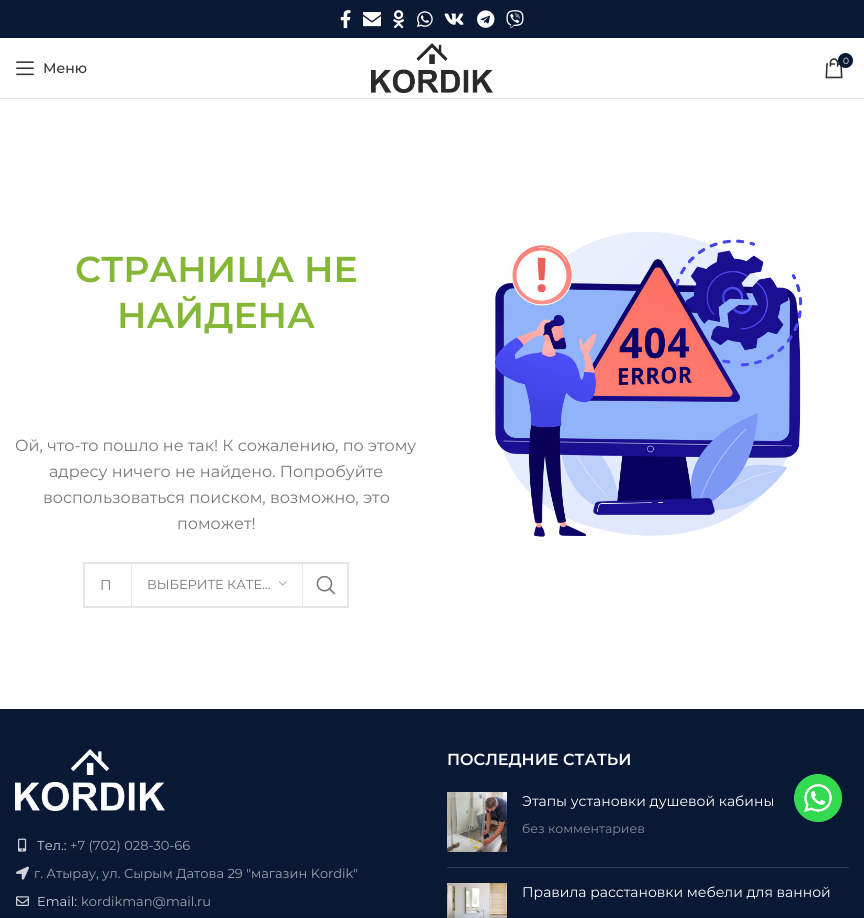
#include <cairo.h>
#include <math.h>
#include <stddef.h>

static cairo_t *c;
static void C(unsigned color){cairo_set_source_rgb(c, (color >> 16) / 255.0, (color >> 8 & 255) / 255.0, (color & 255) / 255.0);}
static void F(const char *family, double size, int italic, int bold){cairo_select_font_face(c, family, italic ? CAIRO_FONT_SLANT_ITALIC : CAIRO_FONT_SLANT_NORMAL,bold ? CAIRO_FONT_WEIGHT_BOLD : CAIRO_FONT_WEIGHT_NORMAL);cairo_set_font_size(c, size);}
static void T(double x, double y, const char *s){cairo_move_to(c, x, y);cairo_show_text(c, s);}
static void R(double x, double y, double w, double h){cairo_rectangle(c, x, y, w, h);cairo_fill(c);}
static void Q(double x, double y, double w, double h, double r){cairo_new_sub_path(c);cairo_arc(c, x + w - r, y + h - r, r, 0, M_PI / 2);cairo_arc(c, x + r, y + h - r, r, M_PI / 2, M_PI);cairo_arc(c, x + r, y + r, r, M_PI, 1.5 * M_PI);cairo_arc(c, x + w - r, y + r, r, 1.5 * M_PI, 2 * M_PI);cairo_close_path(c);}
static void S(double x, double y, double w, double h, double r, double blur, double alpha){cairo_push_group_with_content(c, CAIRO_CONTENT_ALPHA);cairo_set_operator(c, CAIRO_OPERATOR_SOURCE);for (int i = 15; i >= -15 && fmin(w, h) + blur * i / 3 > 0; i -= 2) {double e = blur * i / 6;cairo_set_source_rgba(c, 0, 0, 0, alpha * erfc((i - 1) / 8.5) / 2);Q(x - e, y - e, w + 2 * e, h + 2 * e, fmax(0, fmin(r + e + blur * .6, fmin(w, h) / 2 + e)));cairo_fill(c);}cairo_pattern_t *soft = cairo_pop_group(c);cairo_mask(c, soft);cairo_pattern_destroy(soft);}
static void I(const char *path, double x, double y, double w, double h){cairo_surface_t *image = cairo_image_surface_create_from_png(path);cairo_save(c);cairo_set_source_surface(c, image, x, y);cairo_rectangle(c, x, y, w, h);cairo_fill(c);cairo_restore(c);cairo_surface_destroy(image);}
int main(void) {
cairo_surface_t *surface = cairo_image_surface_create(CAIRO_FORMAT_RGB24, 864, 918);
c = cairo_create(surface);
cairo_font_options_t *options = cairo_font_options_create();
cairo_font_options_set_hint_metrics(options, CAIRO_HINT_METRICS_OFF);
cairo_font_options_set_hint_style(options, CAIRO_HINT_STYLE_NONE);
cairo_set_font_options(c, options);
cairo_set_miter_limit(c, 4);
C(0xffffff);
cairo_paint(c);
C(0x091834);
R(0,0,864,38);
I("1.png",340,10,11,19);
I("2.png",363,12,18,15);
I("3.png",393,10,11,19);
I("4.png",417,11,16,16);
I("5.png",444,13,20,12);
I("6.png",477,10,18,18);
I("7.png",506,10,18,19);
C(0xe8e8e8);
R(0,98,864,1);
I("8.png",371,43,122,50);
I("9.png",825,58,18,21);
C(0x091834);
cairo_arc(c,845.5,60.5,7.5,0,2 * M_PI);
cairo_fill(c);
F("Montserrat",9,0,0);
C(0xffffff);
T(843,64,"0");
I("10.png",16,61,18,15);
F("Montserrat Medium",14,0,0);
C(0x333333);
T(43,73,"Меню");
F("Montserrat SemiBold",36,0,0);
C(0x83b735);
T(75,282,"СТРАНИЦА НЕ");
T(117,328,"НАЙДЕНА");
F("Montserrat",16,0,0);
C(0x777777);
T(15,451,"Ой, что-то пошло не так! К сожалению, по этому");
T(49,477,"адресу ничего не найдено. Попробуйте");
T(43,503,"воспользоваться поиском, возможно, это");
T(177,529,"поможет!");
cairo_rectangle(c,84,563,264,44);
C(0xe6e6e6);
cairo_stroke(c);
F("Montserrat",14,0,0);
C(0x777777);
T(100,590,"П");
C(0xe6e6e6);
R(302,564,1,42);
R(131,564,1,42);
F("Montserrat",13,0,0);
C(0x777777);
T(147,589,"ВЫБЕРИТЕ КАТЕ…");
I("11.png",279,581,8,5);
I("12.png",316,575,20,20);
I("13.png",493,232,310,306);
C(0x091834);
R(0,709,864,209);
I("14.png",15,749,150,62);
I("15.png",18,838,9,14);
C(0xced1d6);
T(37,850,"Тел.:");
C(0x9da3ae);
T(70,850,"+7 (702) 028-30-66");
I("16.png",16,866,13,14);
T(34,878,"г. Атырау, ул. Сырым Датова 29 \"магазин Kordik\"");
I("17.png",16,896,13,10);
C(0xced1d6);
T(37,906,"Email:");
C(0x9da3ae);
T(81,906,"kordikman@mail.ru");
F("Montserrat SemiBold",16,0,0);
C(0xffffff);
T(447,765,"ПОСЛЕДНИЕ СТАТЬИ");
C(0x2e3b52);
R(447,867,402,1);
I("18.png",447,792,60,60);
F("Montserrat",14,0,0);
C(0xffffff);
T(522,806,"Этапы установки душевой кабины");
F("Montserrat",12.5,0,0);
C(0x848c9a);
T(522,833,"без комментариев");
I("19.png",447,883,60,35);
F("Montserrat",14,0,0);
C(0xffffff);
T(522,897,"Правила расстановки мебели для ванной");
I("20.png",793,773,49,49);
C(0x000000);
S(0,918,864,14,0,4.5,.14);
cairo_surface_write_to_png(surface, "o.png");
cairo_font_options_destroy(options);
cairo_destroy(c);
cairo_surface_destroy(surface);
return 0;
}
